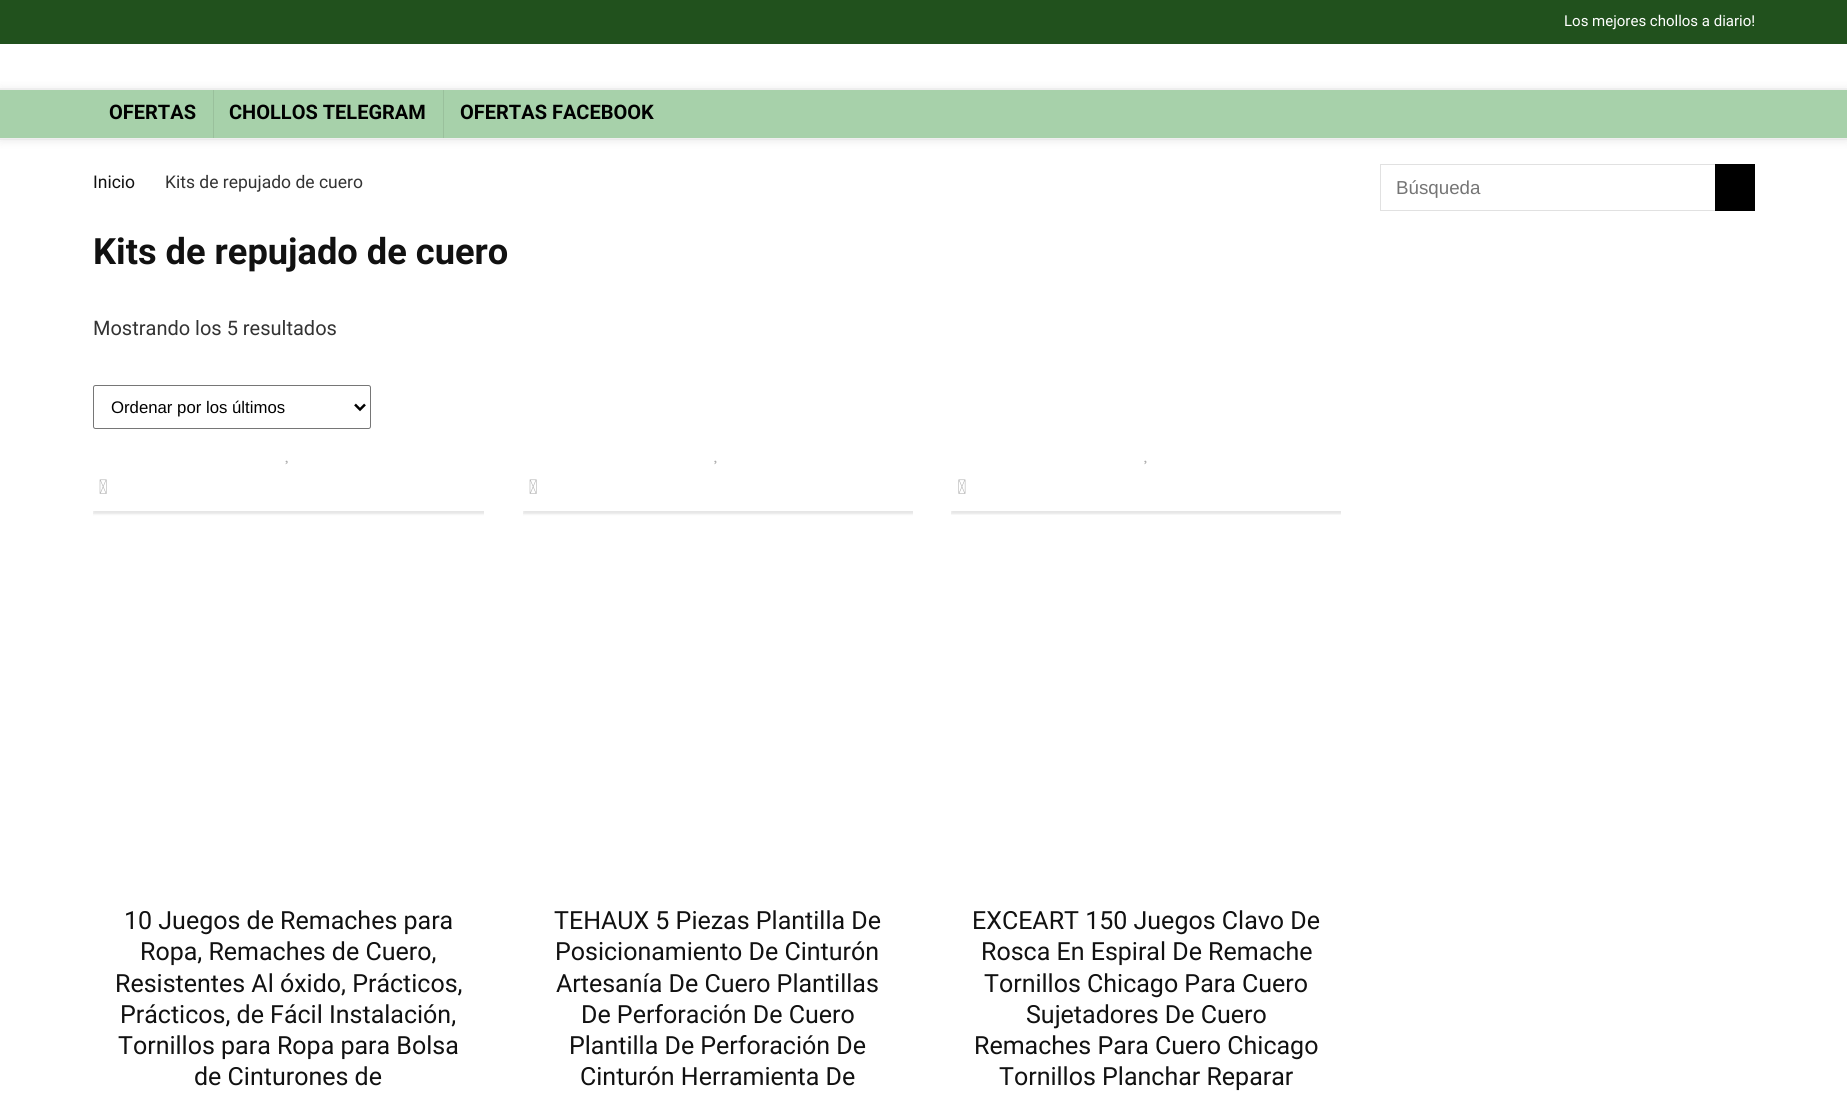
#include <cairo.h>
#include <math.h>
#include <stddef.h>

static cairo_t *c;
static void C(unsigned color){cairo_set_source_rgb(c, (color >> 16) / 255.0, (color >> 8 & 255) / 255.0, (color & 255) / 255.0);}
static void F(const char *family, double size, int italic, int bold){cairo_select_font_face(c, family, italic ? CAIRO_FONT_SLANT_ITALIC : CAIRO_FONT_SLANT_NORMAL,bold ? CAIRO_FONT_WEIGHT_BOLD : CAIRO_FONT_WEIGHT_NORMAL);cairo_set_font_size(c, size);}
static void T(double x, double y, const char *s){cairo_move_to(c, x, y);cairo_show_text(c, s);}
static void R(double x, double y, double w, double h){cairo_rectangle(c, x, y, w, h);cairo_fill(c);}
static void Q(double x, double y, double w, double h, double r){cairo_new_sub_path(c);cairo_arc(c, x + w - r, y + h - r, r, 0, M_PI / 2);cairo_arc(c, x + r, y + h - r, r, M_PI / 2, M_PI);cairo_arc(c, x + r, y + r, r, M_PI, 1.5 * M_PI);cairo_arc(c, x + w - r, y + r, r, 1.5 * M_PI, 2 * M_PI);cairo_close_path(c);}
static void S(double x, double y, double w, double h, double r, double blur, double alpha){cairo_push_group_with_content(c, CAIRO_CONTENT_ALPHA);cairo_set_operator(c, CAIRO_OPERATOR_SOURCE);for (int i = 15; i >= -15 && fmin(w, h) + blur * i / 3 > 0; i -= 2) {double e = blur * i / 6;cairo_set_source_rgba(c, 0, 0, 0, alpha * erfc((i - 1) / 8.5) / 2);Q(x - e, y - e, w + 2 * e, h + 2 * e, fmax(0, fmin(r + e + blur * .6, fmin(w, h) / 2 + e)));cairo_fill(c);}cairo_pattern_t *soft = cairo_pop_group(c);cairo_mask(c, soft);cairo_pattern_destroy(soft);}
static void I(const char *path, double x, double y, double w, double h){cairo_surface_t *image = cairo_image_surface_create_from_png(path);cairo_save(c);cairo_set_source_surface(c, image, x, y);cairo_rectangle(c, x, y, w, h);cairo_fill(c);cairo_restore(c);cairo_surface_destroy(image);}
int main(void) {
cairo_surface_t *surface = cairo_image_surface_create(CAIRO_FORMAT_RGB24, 1847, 1100);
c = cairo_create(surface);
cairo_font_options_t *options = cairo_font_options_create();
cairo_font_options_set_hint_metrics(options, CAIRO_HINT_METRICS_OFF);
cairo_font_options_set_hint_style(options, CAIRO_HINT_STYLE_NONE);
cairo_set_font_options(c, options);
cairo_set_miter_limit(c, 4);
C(0xffffff);
cairo_paint(c);
C(0x21511d);
R(0,0,1847,44);
F("Roboto",15,0,0);
C(0xffffff);
T(1564,26,"Los mejores chollos a diario!");
cairo_rectangle(c,-.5,88.5,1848,51);
C(0xf7f7f7);
cairo_set_line_width(c,1);
cairo_stroke(c);
C(0x000000);
S(0,90,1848,50,0,5,.1);
C(0xa7d1aa);
R(0,90,1847,48);
C(0xeeeeee);
R(0,89,1847,1);
R(0,138,1847,1);
C(0x9ac09c);
R(213,90,1,48);
F("Roboto",20,0,1);
C(0x000000);
T(109,119,"OFERTAS");
C(0x9ac09c);
R(443,90,1,48);
C(0x000000);
T(229,119,"CHOLLOS TELEGRAM");
T(460,119,"OFERTAS FACEBOOK");
F("Roboto",17.5,0,0);
C(0x111111);
T(93,188,"Inicio");
C(0x333333);
T(165,188,"Kits de repujado de cuero");
F("Roboto",36.25,0,1);
C(0x111111);
T(93,264,"Kits de repujado de cuero");
F("Roboto",20,0,0);
C(0x333333);
T(93,335,"Mostrando los 5 resultados");
Q(93.5,385.5,277,43,2);
C(0x767676);
cairo_stroke(c);
cairo_new_path(c);
cairo_move_to(c,355,404.5);
cairo_line_to(c,360,409.5);
cairo_line_to(c,365,404.5);
C(0x000000);
cairo_set_line_width(c,2.5);
cairo_stroke(c);
F("Liberation Sans",16.75,0,0);
T(111,413,"Ordenar por los últimos");
cairo_save(c);
cairo_rectangle(c,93,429,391,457);
cairo_clip(c);
cairo_set_fill_rule(c,CAIRO_FILL_RULE_EVEN_ODD);
cairo_new_path(c);
cairo_move_to(c,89,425);
cairo_line_to(c,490,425);
cairo_line_to(c,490,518);
cairo_line_to(c,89,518);
cairo_close_path(c);
cairo_move_to(c,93,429);
cairo_line_to(c,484,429);
cairo_line_to(c,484,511);
cairo_line_to(c,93,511);
cairo_close_path(c);
cairo_clip(c);
C(0x000000);
S(93,429,393,85,0,1,.1);
cairo_restore(c);
I("1.png",285,460,3,5);
I("2.png",99,479,8,15);
F("Roboto",25,0,0);
C(0x111111);
T(124,929,"10 Juegos de Remaches para");
T(140,960,"Ropa, Remaches de Cuero,");
T(115,992,"Resistentes Al óxido, Prácticos,");
T(120,1023,"Prácticos, de Fácil Instalación,");
T(118,1054,"Tornillos para Ropa para Bolsa");
T(194,1085,"de Cinturones de");
cairo_save(c);
cairo_rectangle(c,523,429,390,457);
cairo_clip(c);
cairo_set_fill_rule(c,CAIRO_FILL_RULE_EVEN_ODD);
cairo_new_path(c);
cairo_move_to(c,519,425);
cairo_line_to(c,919,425);
cairo_line_to(c,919,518);
cairo_line_to(c,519,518);
cairo_close_path(c);
cairo_move_to(c,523,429);
cairo_line_to(c,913,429);
cairo_line_to(c,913,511);
cairo_line_to(c,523,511);
cairo_close_path(c);
cairo_clip(c);
C(0x000000);
S(523,429,392,85,0,1,.1);
cairo_restore(c);
I("3.png",714,460,3,5);
I("2.png",529,479,8,15);
T(554,929,"TEHAUX 5 Piezas Plantilla De");
T(555,960,"Posicionamiento De Cinturón");
T(556,992,"Artesanía De Cuero Plantillas");
T(581,1023,"De Perforación De Cuero");
T(569,1054,"Plantilla De Perforación De");
T(580,1085,"Cinturón Herramienta De");
cairo_save(c);
cairo_rectangle(c,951,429,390,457);
cairo_clip(c);
cairo_rectangle(c,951,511,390,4);
cairo_clip(c);
C(0x000000);
S(951,429,393,85,0,1,.1);
cairo_restore(c);
I("3.png",1144,460,3,5);
I("4.png",958,479,8,15);
T(972,929,"EXCEART 150 Juegos Clavo De");
T(981,960,"Rosca En Espiral De Remache");
T(984,992,"Tornillos Chicago Para Cuero");
T(1026,1023,"Sujetadores De Cuero");
T(974,1054,"Remaches Para Cuero Chicago");
T(999,1085,"Tornillos Planchar Reparar");
cairo_rectangle(c,1380.5,164.5,374,46);
C(0xe1e1e1);
cairo_set_line_width(c,1);
cairo_stroke(c);
F("Liberation Sans",18.75,0,0);
C(0x757575);
T(1396,194,"Búsqueda");
C(0x000000);
R(1715,164,40,47);
cairo_surface_write_to_png(surface, "o.png");
cairo_font_options_destroy(options);
cairo_destroy(c);
cairo_surface_destroy(surface);
return 0;
}
